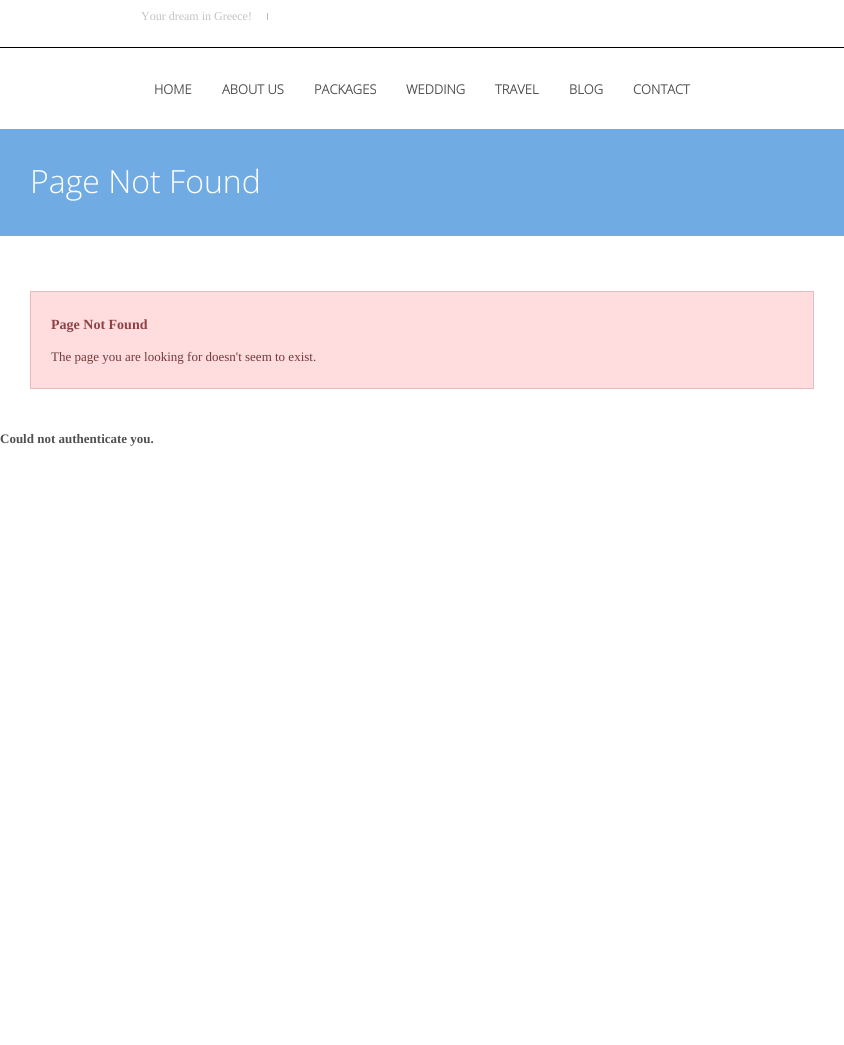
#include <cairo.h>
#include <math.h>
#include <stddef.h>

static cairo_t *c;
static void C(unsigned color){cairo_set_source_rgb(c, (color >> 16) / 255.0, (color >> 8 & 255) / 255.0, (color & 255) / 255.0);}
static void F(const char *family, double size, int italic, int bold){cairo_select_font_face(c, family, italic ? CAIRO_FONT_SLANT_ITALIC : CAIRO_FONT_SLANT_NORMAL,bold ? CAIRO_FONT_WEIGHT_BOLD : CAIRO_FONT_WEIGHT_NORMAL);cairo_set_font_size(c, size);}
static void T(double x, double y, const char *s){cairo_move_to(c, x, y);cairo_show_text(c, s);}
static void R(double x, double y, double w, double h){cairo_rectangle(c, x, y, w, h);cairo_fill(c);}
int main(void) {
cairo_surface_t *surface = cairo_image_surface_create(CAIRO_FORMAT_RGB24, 844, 1045);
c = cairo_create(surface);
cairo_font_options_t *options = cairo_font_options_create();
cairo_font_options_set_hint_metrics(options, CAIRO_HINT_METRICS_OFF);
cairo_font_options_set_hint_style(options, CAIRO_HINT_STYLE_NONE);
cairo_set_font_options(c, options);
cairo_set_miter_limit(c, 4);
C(0xffffff);
cairo_paint(c);
C(0x000000);
R(0,47,844,1);
F("Liberation Serif",12,0,0);
C(0xc2c2c2);
T(141,20,"Your dream in Greece!");
C(0xbababa);
R(267,13,1,7);
F("Open Sans",13,0,1);
C(0x505050);
T(154,94,"HOME");
T(222,94,"ABOUT US");
T(314,94,"PACKAGES");
T(406,94,"WEDDING");
T(495,94,"TRAVEL");
T(569,94,"BLOG");
T(633,94,"CONTACT");
C(0x70ace3);
R(0,129,844,107);
F("Open Sans Light",32,0,0);
C(0xffffff);
T(30,193,"Page Not Found");
C(0xffdcdd);
cairo_rectangle(c,30.5,291.5,783,97);
cairo_fill_preserve(c);
C(0xe9b9bb);
cairo_set_line_width(c,1);
cairo_stroke(c);
F("Liberation Serif",14,0,1);
C(0x8d4345);
T(51,329,"Page Not Found");
F("Liberation Serif",13,0,0);
C(0x713a3c);
T(51,361,"The page you are looking for doesn't seem to exist.");
F("Liberation Serif",13,0,1);
C(0x505050);
T(0,443,"Could not authenticate you.");
cairo_surface_write_to_png(surface, "o.png");
cairo_font_options_destroy(options);
cairo_destroy(c);
cairo_surface_destroy(surface);
return 0;
}
